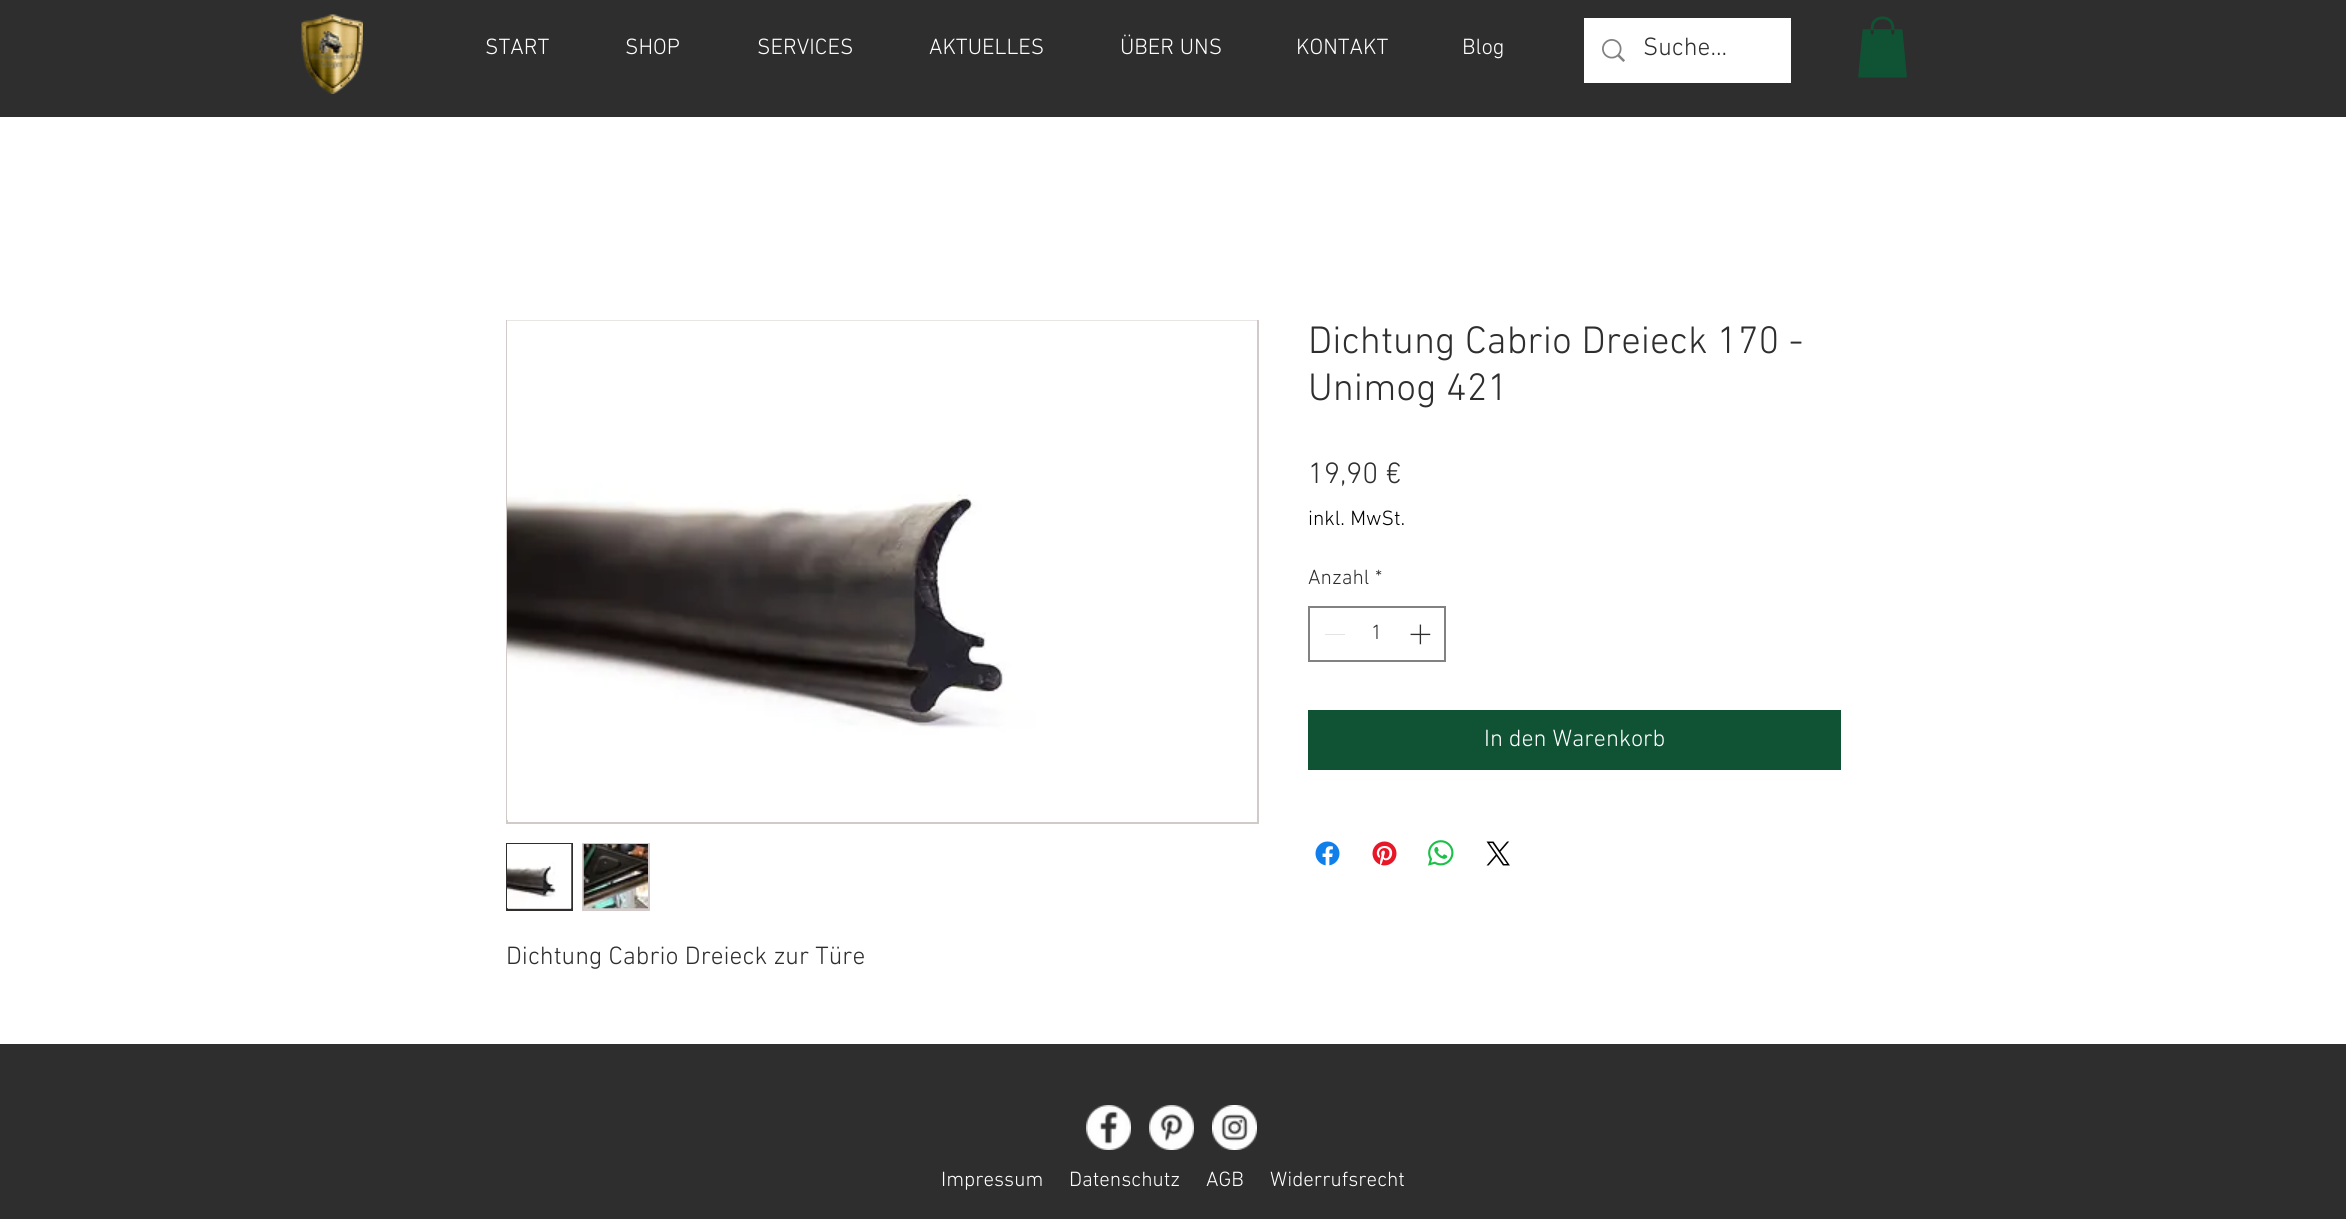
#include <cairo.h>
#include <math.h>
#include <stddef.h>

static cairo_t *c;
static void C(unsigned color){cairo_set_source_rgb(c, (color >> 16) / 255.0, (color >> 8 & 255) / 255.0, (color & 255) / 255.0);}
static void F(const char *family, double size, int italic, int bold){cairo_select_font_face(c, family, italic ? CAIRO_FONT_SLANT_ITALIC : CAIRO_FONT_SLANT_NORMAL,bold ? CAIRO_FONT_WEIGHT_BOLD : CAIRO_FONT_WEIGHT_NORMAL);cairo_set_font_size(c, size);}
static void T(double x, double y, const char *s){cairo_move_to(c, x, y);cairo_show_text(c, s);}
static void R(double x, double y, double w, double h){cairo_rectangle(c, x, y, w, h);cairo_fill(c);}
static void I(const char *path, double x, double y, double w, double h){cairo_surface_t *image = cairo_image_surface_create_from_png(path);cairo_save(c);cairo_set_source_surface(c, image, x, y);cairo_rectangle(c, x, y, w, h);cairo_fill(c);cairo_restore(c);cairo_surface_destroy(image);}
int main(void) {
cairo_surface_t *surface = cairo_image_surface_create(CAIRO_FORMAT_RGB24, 2346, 1219);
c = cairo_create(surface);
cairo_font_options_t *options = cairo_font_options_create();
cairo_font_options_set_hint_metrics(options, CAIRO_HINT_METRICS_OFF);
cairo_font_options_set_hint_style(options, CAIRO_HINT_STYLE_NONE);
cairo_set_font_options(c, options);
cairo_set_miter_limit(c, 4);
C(0xffffff);
cairo_paint(c);
C(0x2f2e2e);
R(0,0,2346,117);
I("1.png",301,14,62,80);
F("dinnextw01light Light",22.5,0,0);
C(0xffffff);
T(485,54,"START");
T(625,54,"SHOP");
T(757,54,"SERVICES");
T(929,54,"AKTUELLES");
T(1120,54,"ÜBER UNS");
T(1296,54,"KONTAKT");
T(1462,54,"Blog");
R(1584,18,207,65);
I("2.png",1602,39,23,23);
F("dinnextw01light Light",25.5,0,0);
C(0x2f2e2e);
T(1643,55,"Suche...");
I("3.png",1858,16,49,62);
F("dinnextw01light Light",39,0,0);
T(1308,353,"Dichtung Cabrio Dreieck 170 -");
T(1308,400,"Unimog 421");
F("dinnextw01light Light",30,0,0);
T(1308,483,"19,90 €");
F("dinnextw01light Light",21,0,0);
C(0x000000);
T(1308,525,"inkl. MwSt.");
C(0x2f2e2e);
T(1308,584,"Anzahl");
T(1375,584,"*");
cairo_rectangle(c,1309,607,136,54);
C(0x828282);
cairo_stroke(c);
C(0xe3e3e3);
R(1325,634,20,1);
C(0x2f2e2e);
T(1371,639,"1");
I("4.png",1410,624,21,21);
C(0x0f5334);
R(1308,710,533,60);
F("dinnextw01light Light",24,0,0);
C(0xffffff);
T(1484,746,"In den Warenkorb");
I("5.png",1315,841,25,25);
I("6.png",1372,841,25,25);
I("7.png",1428,840,26,26);
I("8.png",1486,841,24,25);
cairo_rectangle(c,507,321,751,502);
C(0xd1cac9);
cairo_stroke(c);
I("9.png",507,320,750,501);
R(508,908,63,1);
cairo_rectangle(c,507,844,65,66);
C(0x2f2e2e);
cairo_stroke(c);
I("10.png",507,844,65,65);
C(0xd1cac9);
R(582,843,68,68);
I("11.png",583,844,65,65);
F("dinnextw01light Light",25.5,0,0);
C(0x2f2e2e);
T(506,964,"Dichtung Cabrio Dreieck zur Türe");
R(0,1044,2346,175);
I("12.png",1086,1105,45,45);
I("13.png",1149,1105,45,45);
I("14.png",1212,1105,45,45);
F("dinnextw01light Light",21,0,0);
C(0xffffff);
T(941,1186,"Impressum");
T(1069,1186,"Datenschutz");
T(1206,1186,"AGB");
T(1270,1186,"Widerrufsrecht");
cairo_surface_write_to_png(surface, "o.png");
cairo_font_options_destroy(options);
cairo_destroy(c);
cairo_surface_destroy(surface);
return 0;
}
